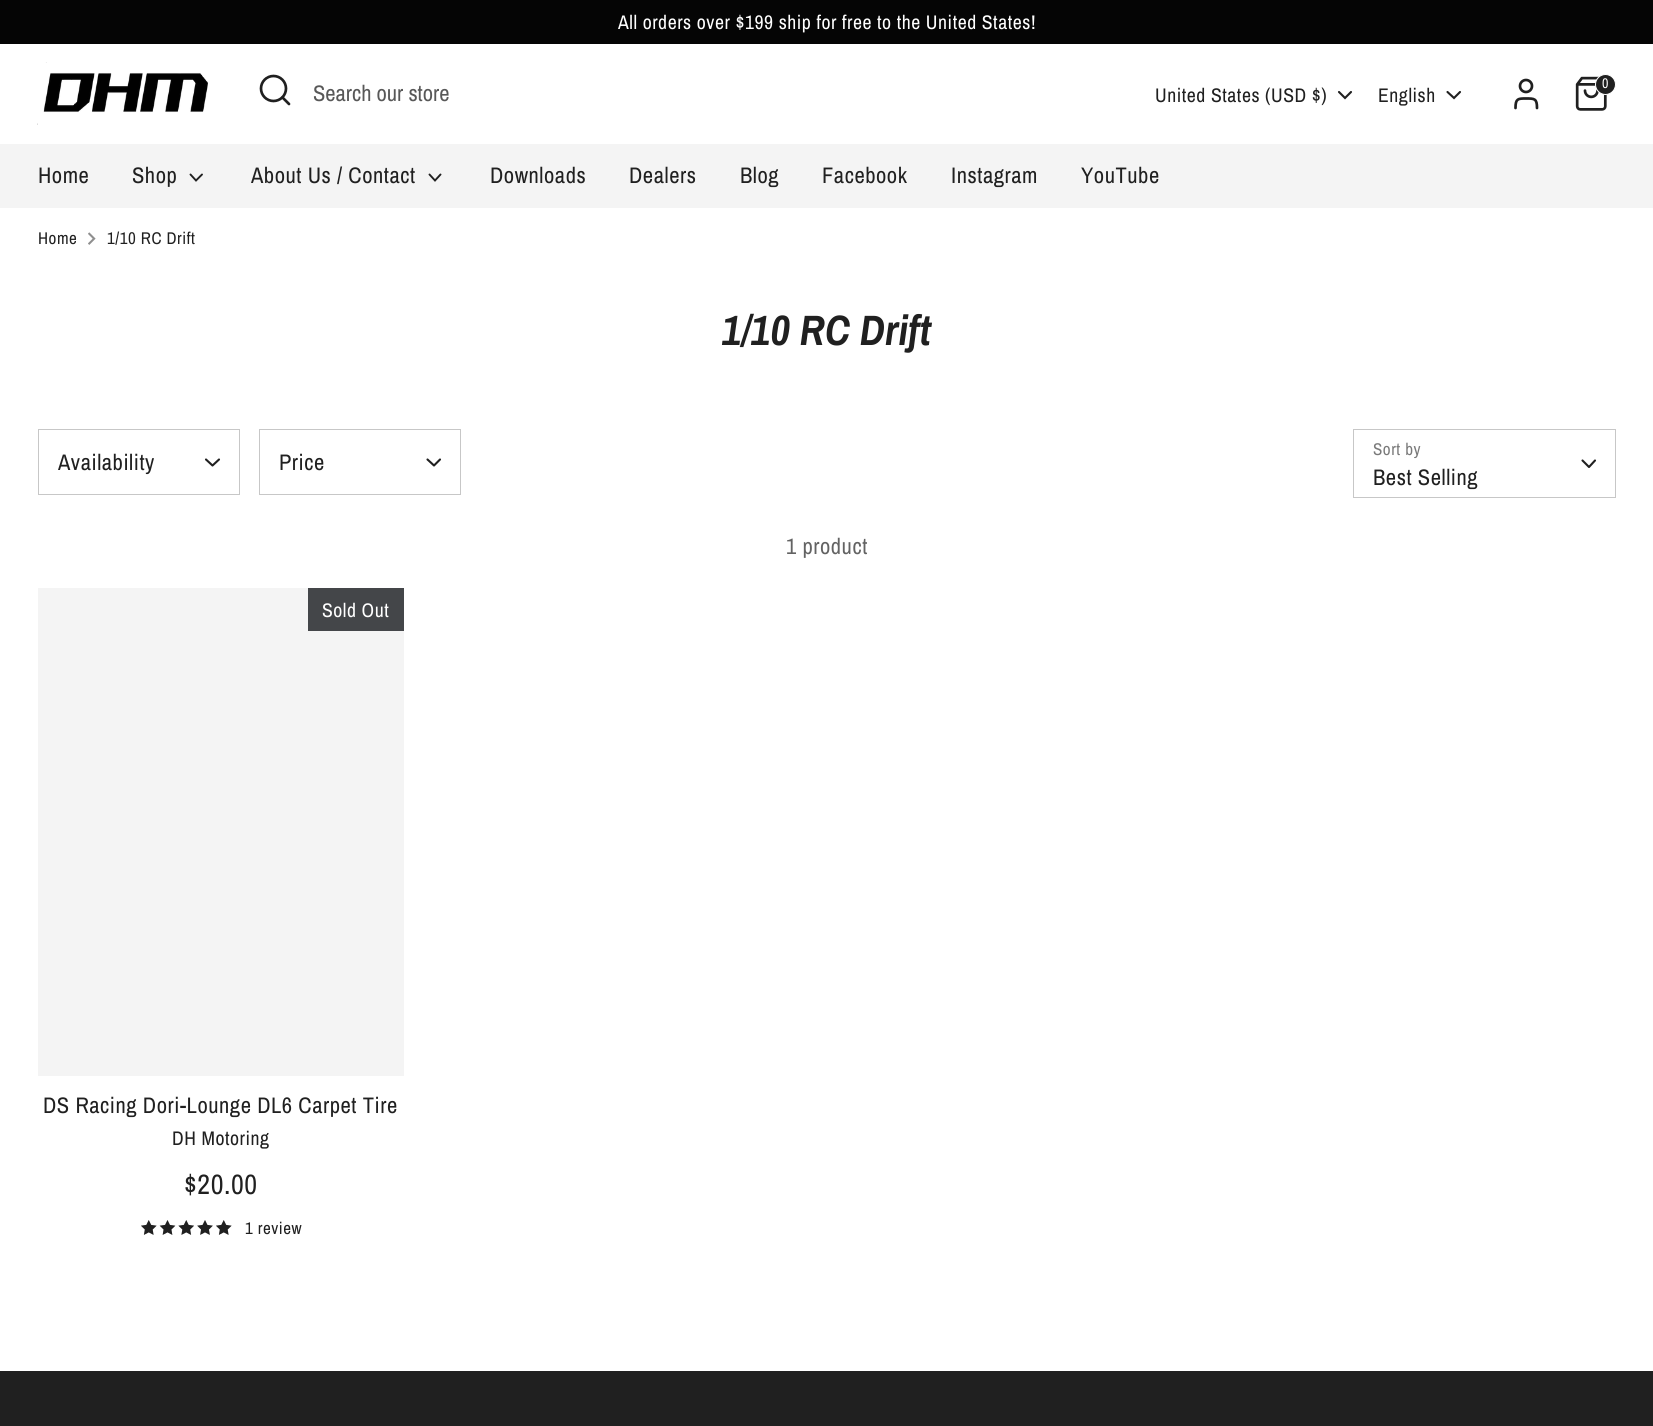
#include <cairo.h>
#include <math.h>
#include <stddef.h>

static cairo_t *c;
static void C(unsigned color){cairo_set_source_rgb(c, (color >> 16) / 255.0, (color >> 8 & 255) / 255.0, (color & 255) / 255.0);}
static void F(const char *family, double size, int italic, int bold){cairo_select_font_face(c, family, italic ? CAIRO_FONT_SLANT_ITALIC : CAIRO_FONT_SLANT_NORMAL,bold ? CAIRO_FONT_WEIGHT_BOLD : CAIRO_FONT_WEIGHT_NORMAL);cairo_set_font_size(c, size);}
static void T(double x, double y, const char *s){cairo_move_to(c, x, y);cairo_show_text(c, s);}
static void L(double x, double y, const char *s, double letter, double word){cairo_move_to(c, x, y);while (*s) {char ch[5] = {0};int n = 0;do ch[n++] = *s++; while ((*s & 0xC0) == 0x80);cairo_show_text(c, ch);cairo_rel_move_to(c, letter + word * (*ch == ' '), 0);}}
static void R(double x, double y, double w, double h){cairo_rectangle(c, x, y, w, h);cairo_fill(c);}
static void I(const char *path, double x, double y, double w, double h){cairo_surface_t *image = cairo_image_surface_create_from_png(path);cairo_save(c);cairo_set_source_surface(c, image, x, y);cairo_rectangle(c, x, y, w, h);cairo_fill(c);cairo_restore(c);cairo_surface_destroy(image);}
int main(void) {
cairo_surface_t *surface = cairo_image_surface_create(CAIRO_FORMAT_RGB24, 1653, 1426);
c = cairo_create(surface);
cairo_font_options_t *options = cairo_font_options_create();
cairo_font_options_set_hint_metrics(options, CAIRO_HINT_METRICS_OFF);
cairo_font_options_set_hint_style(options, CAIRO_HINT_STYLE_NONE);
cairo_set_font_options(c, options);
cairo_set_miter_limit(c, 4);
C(0xffffff);
cairo_paint(c);
C(0x050505);
R(0,0,1653,44);
F("Archivo Narrow",19.7,0,0);
C(0xffffff);
L(618,29,"All orders over $199 ship for free to the United States!",.55,0);
I("1.png",37,62,171,63);
cairo_arc(c,273.5,88.5,12.5,0,2 * M_PI);
C(0x202020);
cairo_set_line_width(c,2.7);
cairo_stroke(c);
cairo_new_path(c);
cairo_move_to(c,289,104);
cairo_line_to(c,282.5,97.5);
cairo_set_line_cap(c,CAIRO_LINE_CAP_ROUND);
cairo_set_line_join(c,CAIRO_LINE_JOIN_ROUND);
cairo_stroke(c);
F("Archivo Narrow",22.5,0,0);
C(0x585858);
T(313,101,"Search our store");
cairo_new_path(c);
cairo_move_to(c,1537,108);
cairo_curve_to(c,1537,98.5,1534.5,98.5,1526,98.5);
cairo_curve_to(c,1518,98.5,1515.5,98.5,1515.5,108);
C(0x202020);
cairo_stroke(c);
cairo_arc(c,1526,86,6,0,2 * M_PI);
cairo_set_line_cap(c,CAIRO_LINE_CAP_BUTT);
cairo_set_line_join(c,CAIRO_LINE_JOIN_MITER);
cairo_stroke(c);
I("2.png",1575,76,32,35);
cairo_arc(c,1605.5,84.5,10,0,2 * M_PI);
cairo_fill_preserve(c);
C(0xffffff);
cairo_set_line_width(c,1);
cairo_stroke(c);
F("Archivo Narrow",14,0,0);
T(1602,88,"0");
F("Archivo Narrow",19.7,0,0);
C(0x202020);
L(1155,102,"United States (USD $)",.55,0);
cairo_new_path(c);
cairo_move_to(c,1339,92);
cairo_line_to(c,1345,98);
cairo_line_to(c,1351,92);
cairo_set_line_width(c,2.1);
cairo_set_line_cap(c,CAIRO_LINE_CAP_ROUND);
cairo_stroke(c);
L(1378,102,"English",.55,0);
cairo_new_path(c);
cairo_move_to(c,1447.5,92);
cairo_line_to(c,1454,98);
cairo_line_to(c,1460,92);
cairo_stroke(c);
C(0xf4f4f4);
R(0,144,1653,64);
F("Archivo Narrow",22.5,0,0);
C(0x202020);
L(38,183,"Home",.55,0);
L(132,183,"Shop",.55,0);
cairo_new_path(c);
cairo_move_to(c,190.5,174.5);
cairo_line_to(c,196,180.5);
cairo_line_to(c,202,174.5);
cairo_set_line_width(c,1.9);
cairo_stroke(c);
L(251,183,"About Us / Contact",.55,0);
cairo_new_path(c);
cairo_move_to(c,429.5,174.5);
cairo_line_to(c,435,180.5);
cairo_line_to(c,440.5,174.5);
cairo_stroke(c);
L(490,183,"Downloads",.55,0);
L(629,183,"Dealers",.55,0);
L(740,183,"Blog",.55,0);
L(822,183,"Facebook",.55,0);
L(951,183,"Instagram",.55,0);
L(1081,183,"YouTube",.55,0);
F("Archivo Narrow",17,0,0);
L(38,244,"Home",.55,0);
I("3.png",88,232,8,13);
L(107,244,"1/10 RC Drift",.55,0);
F("Archivo Narrow",42.5,1,1);
T(722,345,"1/10 RC Drift");
cairo_rectangle(c,38.5,429.5,201,65);
C(0xc7c7c7);
cairo_set_line_width(c,1);
cairo_set_line_cap(c,CAIRO_LINE_CAP_BUTT);
cairo_stroke(c);
F("Archivo Narrow",22.5,0,0);
C(0x202020);
L(58,470,"Availability",.55,0);
cairo_new_path(c);
cairo_move_to(c,206,459.5);
cairo_line_to(c,212.5,465.5);
cairo_line_to(c,219,459.5);
cairo_set_line_width(c,2.1);
cairo_set_line_cap(c,CAIRO_LINE_CAP_ROUND);
cairo_set_line_join(c,CAIRO_LINE_JOIN_ROUND);
cairo_stroke(c);
cairo_rectangle(c,259.5,429.5,201,65);
C(0xc7c7c7);
cairo_set_line_width(c,1);
cairo_set_line_cap(c,CAIRO_LINE_CAP_BUTT);
cairo_set_line_join(c,CAIRO_LINE_JOIN_MITER);
cairo_stroke(c);
C(0x202020);
L(279,470,"Price",.55,0);
cairo_new_path(c);
cairo_move_to(c,427.5,459.5);
cairo_line_to(c,434,465.5);
cairo_line_to(c,440,459.5);
cairo_set_line_width(c,2.1);
cairo_set_line_cap(c,CAIRO_LINE_CAP_ROUND);
cairo_set_line_join(c,CAIRO_LINE_JOIN_ROUND);
cairo_stroke(c);
cairo_rectangle(c,1353.5,429.5,262,68);
C(0xc7c7c7);
cairo_set_line_width(c,1);
cairo_set_line_cap(c,CAIRO_LINE_CAP_BUTT);
cairo_set_line_join(c,CAIRO_LINE_JOIN_MITER);
cairo_stroke(c);
F("Archivo Narrow",17,0,0);
C(0x797979);
L(1373,455,"Sort by",.55,0);
cairo_new_path(c);
cairo_move_to(c,1582.5,460.5);
cairo_line_to(c,1589,467);
cairo_line_to(c,1595,460.5);
C(0x202020);
cairo_set_line_width(c,2.1);
cairo_set_line_cap(c,CAIRO_LINE_CAP_ROUND);
cairo_set_line_join(c,CAIRO_LINE_JOIN_ROUND);
cairo_stroke(c);
F("Archivo Narrow",22.5,0,0);
L(1373,485,"Best Selling",.55,0);
C(0x636363);
L(786,554,"1 product",.55,0);
C(0xf4f4f4);
R(38,588,366,488);
C(0x444649);
R(308,588,96,43);
F("Archivo Narrow",19.7,0,0);
C(0xffffff);
L(322,617,"Sold Out",.55,0);
F("Archivo Narrow",28,0,0);
C(0x202020);
L(184,1194,"$20.00",.55,0);
F("Archivo Narrow",22.5,0,0);
L(43,1113,"DS Racing Dori-Lounge DL6 Carpet Tire",.55,0);
F("Archivo Narrow",19.7,0,0);
L(172,1145,"DH Motoring",.55,0);
I("4.png",141,1220,16,15);
I("5.png",160,1220,15,15);
I("6.png",178,1220,16,15);
I("7.png",197,1220,16,15);
I("4.png",216,1220,16,15);
I("8.png",141,1220,16,15);
I("9.png",159,1220,17,15);
I("10.png",178,1220,16,15);
I("11.png",197,1220,16,15);
I("8.png",216,1220,16,15);
F("Archivo Narrow",17,0,0);
L(245,1234,"1 review",.55,0);
R(0,1371,1653,55);
cairo_surface_write_to_png(surface, "o.png");
cairo_font_options_destroy(options);
cairo_destroy(c);
cairo_surface_destroy(surface);
return 0;
}
